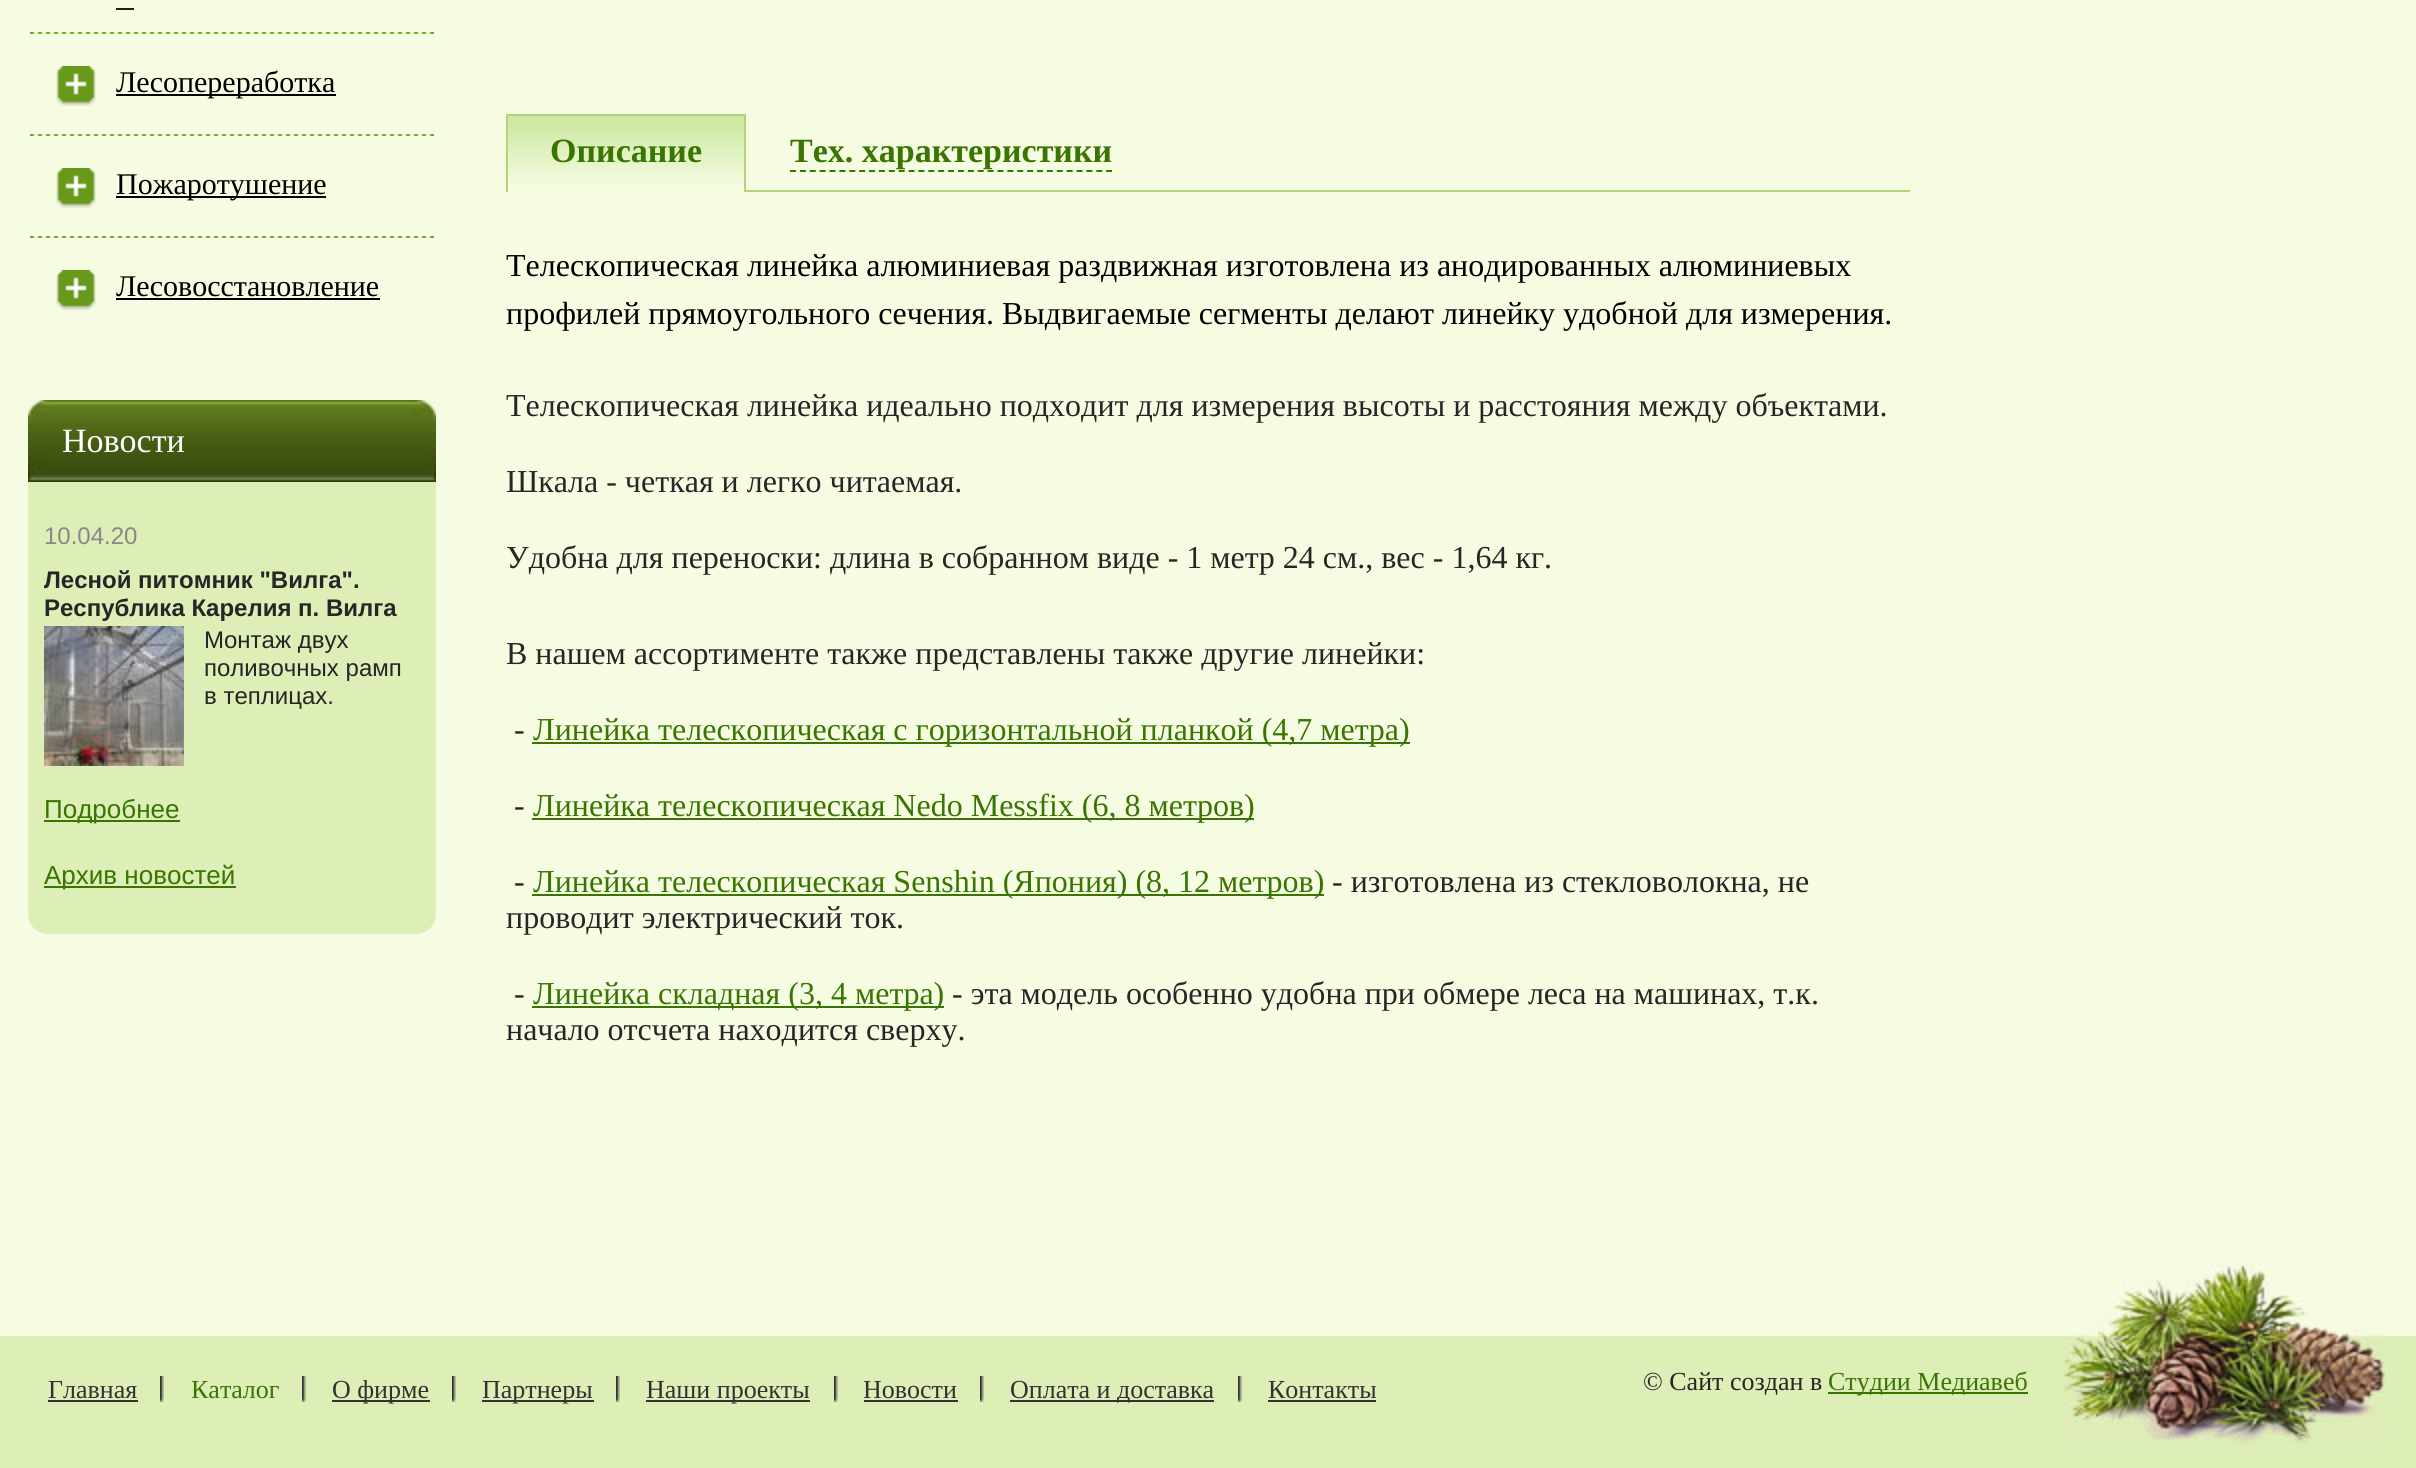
#include <cairo.h>
#include <math.h>
#include <stddef.h>

static cairo_t *c;
static void C(unsigned color){cairo_set_source_rgb(c, (color >> 16) / 255.0, (color >> 8 & 255) / 255.0, (color & 255) / 255.0);}
static void F(const char *family, double size, int italic, int bold){cairo_select_font_face(c, family, italic ? CAIRO_FONT_SLANT_ITALIC : CAIRO_FONT_SLANT_NORMAL,bold ? CAIRO_FONT_WEIGHT_BOLD : CAIRO_FONT_WEIGHT_NORMAL);cairo_set_font_size(c, size);}
static void T(double x, double y, const char *s){cairo_move_to(c, x, y);cairo_show_text(c, s);}
static void R(double x, double y, double w, double h){cairo_rectangle(c, x, y, w, h);cairo_fill(c);}
static void I(const char *path, double x, double y, double w, double h){cairo_surface_t *image = cairo_image_surface_create_from_png(path);cairo_save(c);cairo_set_source_surface(c, image, x, y);cairo_rectangle(c, x, y, w, h);cairo_fill(c);cairo_restore(c);cairo_surface_destroy(image);}
int main(void) {
cairo_surface_t *surface = cairo_image_surface_create(CAIRO_FORMAT_RGB24, 2416, 1468);
c = cairo_create(surface);
cairo_font_options_t *options = cairo_font_options_create();
cairo_font_options_set_hint_metrics(options, CAIRO_HINT_METRICS_OFF);
cairo_font_options_set_hint_style(options, CAIRO_HINT_STYLE_NONE);
cairo_set_font_options(c, options);
cairo_set_miter_limit(c, 4);
C(0xf5fce2);
cairo_paint(c);
I("1.png",30,32,404,2);
C(0x1f1f1f);
R(116,8,18,2);
I("1.png",30,134,404,2);
I("2.png",56,66,40,40);
C(0x000000);
R(116,94,220,2);
F("Liberation Serif",30,0,0);
T(116,92,"Лесопереработка");
I("1.png",30,236,404,2);
I("2.png",56,168,40,40);
R(116,196,210,2);
T(116,194,"Пожаротушение");
I("2.png",56,270,40,40);
T(116,296,"Лесовосстановление");
R(116,298,264,2);
I("3.png",28,400,408,82);
F("Liberation Serif",34,0,0);
C(0xffffff);
T(62,452,"Новости");
C(0xddeeb7);
cairo_new_path(c);
cairo_move_to(c,28,482);
cairo_line_to(c,436,482);
cairo_line_to(c,436,914);
cairo_curve_to(c,436,925,427,934,416,934);
cairo_line_to(c,48,934);
cairo_curve_to(c,37,934,28,925,28,914);
cairo_close_path(c);
cairo_fill(c);
F("Liberation Sans",24,0,0);
C(0x888888);
T(44,544,"10.04.20");
F("Liberation Sans",24,0,1);
C(0x262626);
T(44,588,"Лесной питомник \"Вилга\".");
T(44,616,"Республика Карелия п. Вилга");
I("4.png",44,626,140,140);
F("Liberation Sans",24,0,0);
T(204,648,"Монтаж двух");
T(204,676,"поливочных рамп");
T(204,704,"в теплицах.");
C(0x397500);
R(44,820,136,2);
F("Liberation Sans",26,0,0);
T(44,818,"Подробнее");
R(44,886,192,2);
T(44,884,"Архив новостей");
C(0xb1d47a);
R(746,190,1164,2);
I("5.png",508,116,236,76);
R(506,114,240,2);
R(744,114,2,78);
R(506,114,2,78);
F("Liberation Serif",34,0,1);
C(0x397500);
T(550,162,"Описание");
T(790,162,"Тех. характеристики");
cairo_new_path(c);
cairo_move_to(c,790,171);
cairo_line_to(c,1112,171);
cairo_set_dash(c,(double[]){6,3.88},2,0);
cairo_stroke(c);
F("Liberation Serif",32,0,0);
C(0x000000);
T(506,276,"Телескопическая линейка алюминиевая раздвижная изготовлена из анодированных алюминиевых");
T(506,324,"профилей прямоугольного сечения. Выдвигаемые сегменты делают линейку удобной для измерения.");
C(0x262626);
T(506,416,"Телескопическая линейка идеально подходит для измерения высоты и расстояния между объектами.");
T(506,492,"Шкала - четкая и легко читаемая.");
T(506,568,"Удобна для переноски: длина в собранном виде - 1 метр 24 см., вес - 1,64 кг.");
T(506,664,"В нашем ассортименте также представлены также другие линейки:");
T(514,740,"-");
C(0x397500);
R(532,742,878,2);
T(533,740,"Линейка телескопическая с горизонтальной планкой (4,7 метра)");
C(0x262626);
T(514,816,"-");
C(0x397500);
R(532,818,722,2);
T(533,816,"Линейка телескопическая Nedo Messfix (6, 8 метров)");
C(0x262626);
T(514,892,"-");
C(0x397500);
R(532,894,792,2);
T(533,892,"Линейка телескопическая Senshin (Япония) (8, 12 метров)");
C(0x262626);
T(1332,892,"- изготовлена из стекловолокна, не");
T(506,928,"проводит электрический ток.");
T(514,1004,"-");
C(0x397500);
R(532,1006,412,2);
T(533,1004,"Линейка складная (3, 4 метра)");
C(0x262626);
T(952,1004,"- эта модель особенно удобна при обмере леса на машинах, т.к.");
T(506,1040,"начало отсчета находится сверху.");
C(0xddeeb7);
R(0,1336,2416,132);
I("6.png",2064,1264,322,181);
F("Liberation Serif",26,0,0);
C(0x323232);
T(48,1398,"Главная");
R(48,1400,90,2);
I("7.png",160,1376,4,26);
C(0x397500);
T(191,1398,"Каталог");
I("7.png",302,1376,4,26);
C(0x323232);
R(332,1400,98,2);
T(332,1398,"О фирме");
I("7.png",452,1376,4,26);
R(482,1400,112,2);
T(482,1398,"Партнеры");
I("7.png",616,1376,4,26);
R(646,1400,164,2);
T(646,1398,"Наши проекты");
I("7.png",834,1376,4,26);
T(863,1398,"Новости");
R(864,1400,94,2);
I("7.png",980,1376,4,26);
R(1010,1400,204,2);
T(1010,1398,"Оплата и доставка");
I("7.png",1238,1376,4,26);
T(1268,1398,"Контакты");
R(1268,1400,108,2);
C(0x262626);
T(1643,1390,"© Сайт создан в");
C(0x397500);
R(1828,1392,200,2);
T(1828,1390,"Студии Медиавеб");
cairo_surface_write_to_png(surface, "o.png");
cairo_font_options_destroy(options);
cairo_destroy(c);
cairo_surface_destroy(surface);
return 0;
}
